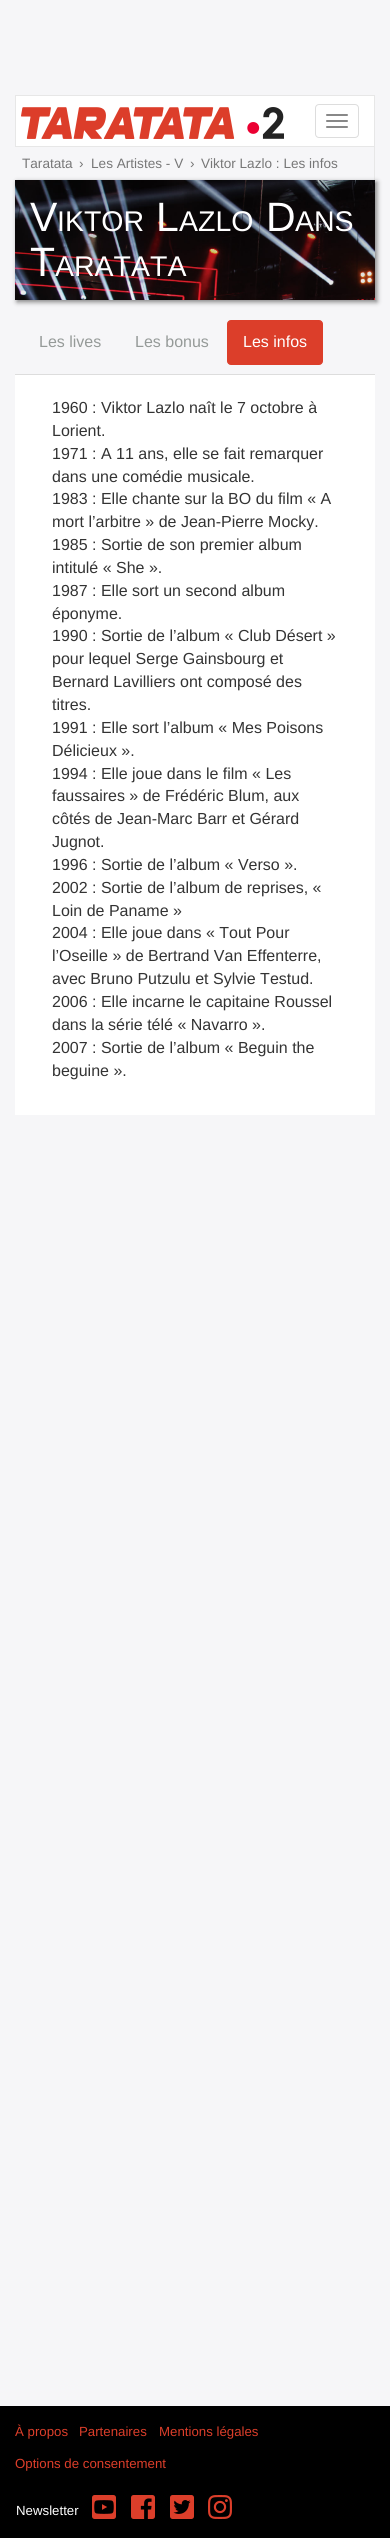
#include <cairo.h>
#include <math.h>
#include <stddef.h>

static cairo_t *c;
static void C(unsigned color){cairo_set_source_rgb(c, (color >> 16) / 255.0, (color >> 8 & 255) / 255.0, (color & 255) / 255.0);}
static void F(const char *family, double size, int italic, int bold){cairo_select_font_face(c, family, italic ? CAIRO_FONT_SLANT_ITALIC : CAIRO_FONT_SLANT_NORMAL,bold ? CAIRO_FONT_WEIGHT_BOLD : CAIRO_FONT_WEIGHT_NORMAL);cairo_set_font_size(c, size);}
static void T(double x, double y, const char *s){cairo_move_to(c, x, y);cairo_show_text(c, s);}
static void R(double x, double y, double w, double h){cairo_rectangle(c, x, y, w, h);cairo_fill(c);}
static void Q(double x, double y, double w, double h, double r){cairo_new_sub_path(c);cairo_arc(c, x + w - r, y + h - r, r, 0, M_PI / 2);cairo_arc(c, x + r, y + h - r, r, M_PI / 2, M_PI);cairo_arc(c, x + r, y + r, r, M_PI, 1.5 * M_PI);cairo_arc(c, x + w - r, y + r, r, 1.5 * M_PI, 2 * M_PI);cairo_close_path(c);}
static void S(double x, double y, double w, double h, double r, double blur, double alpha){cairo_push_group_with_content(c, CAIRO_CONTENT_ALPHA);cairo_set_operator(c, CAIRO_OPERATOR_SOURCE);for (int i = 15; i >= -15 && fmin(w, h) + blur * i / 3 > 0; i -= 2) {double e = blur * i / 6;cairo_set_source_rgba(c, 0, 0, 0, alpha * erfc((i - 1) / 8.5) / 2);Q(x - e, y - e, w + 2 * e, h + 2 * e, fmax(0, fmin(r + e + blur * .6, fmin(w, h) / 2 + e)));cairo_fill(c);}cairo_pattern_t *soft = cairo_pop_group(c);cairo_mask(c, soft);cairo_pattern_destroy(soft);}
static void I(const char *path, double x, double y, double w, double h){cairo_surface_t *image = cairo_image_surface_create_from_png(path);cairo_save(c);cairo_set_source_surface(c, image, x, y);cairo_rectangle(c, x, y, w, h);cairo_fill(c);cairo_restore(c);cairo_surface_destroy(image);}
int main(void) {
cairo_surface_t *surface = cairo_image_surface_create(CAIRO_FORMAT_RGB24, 390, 2538);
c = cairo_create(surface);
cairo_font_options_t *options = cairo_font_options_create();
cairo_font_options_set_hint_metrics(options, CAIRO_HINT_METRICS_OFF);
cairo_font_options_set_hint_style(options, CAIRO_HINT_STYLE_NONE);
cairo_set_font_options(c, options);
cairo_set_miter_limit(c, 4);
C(0xf6f6f8);
cairo_paint(c);
C(0xffffff);
cairo_rectangle(c,15.5,95.5,359,51);
cairo_fill_preserve(c);
C(0xe7e7e7);
cairo_set_line_width(c,1);
cairo_stroke(c);
I("1.png",21,107,263,32);
Q(315.5,104.5,43,33,3.5);
C(0xdddddd);
cairo_stroke(c);
C(0x888888);
Q(326,114,22,2,1);
cairo_fill(c);
Q(326,120,22,2,1);
cairo_fill(c);
Q(326,126,22,2,1);
cairo_fill(c);
C(0xe7e7e7);
R(374,147,1,33);
F("Liberation Sans",13.6,0,0);
C(0x777777);
T(22,168,"Taratata");
T(79,168,"›");
T(91,168,"Les Artistes - V");
T(190,168,"›");
T(201,168,"Viktor Lazlo : Les infos");
C(0x808080);
S(17,182,360,120,0,2.5,1);
I("2.png",15,180,360,120);
F("Liberation Sans",41,0,0);
C(0xffffff);
T(30,231,"V");
F("Liberation Sans",28.5,0,0);
T(57,231,"IKTOR");
F("Liberation Sans",41,0,0);
T(156,231,"L");
F("Liberation Sans",28.5,0,0);
T(179,231,"AZLO");
F("Liberation Sans",41,0,0);
T(266,231,"D");
F("Liberation Sans",28.5,0,0);
T(295,231,"ANS");
F("Liberation Sans",41,0,0);
T(30,276,"T");
F("Liberation Sans",28.5,0,0);
T(55,276,"ARATATA");
C(0xdddddd);
R(15,374,360,1);
F("Liberation Sans",16,0,0);
C(0x959a98);
T(39,347,"Les lives");
T(135,347,"Les bonus");
C(0xdc3e2a);
Q(227.5,320.5,95,44,3.5);
cairo_fill_preserve(c);
cairo_stroke(c);
C(0xffffff);
T(243,347,"Les infos");
R(15,375,360,740);
C(0x333333);
T(52,413,"1960 : Viktor Lazlo naît le 7 octobre à");
T(52,436,"Lorient.");
T(52,459,"1971 : A 11 ans, elle se fait remarquer");
T(52,482,"dans une comédie musicale.");
T(52,504,"1983 : Elle chante sur la BO du film « A");
T(52,527,"mort l’arbitre » de Jean-Pierre Mocky.");
T(52,550,"1985 : Sortie de son premier album");
T(52,573,"intitulé « She ».");
T(52,596,"1987 : Elle sort un second album");
T(52,619,"éponyme.");
T(52,641,"1990 : Sortie de l’album « Club Désert »");
T(52,664,"pour lequel Serge Gainsbourg et");
T(52,687,"Bernard Lavilliers ont composé des");
T(52,710,"titres.");
T(52,733,"1991 : Elle sort l’album « Mes Poisons");
T(52,756,"Délicieux ».");
T(52,779,"1994 : Elle joue dans le film « Les");
T(52,801,"faussaires » de Frédéric Blum, aux");
T(52,824,"côtés de Jean-Marc Barr et Gérard");
T(52,847,"Jugnot.");
T(52,870,"1996 : Sortie de l’album « Verso ».");
T(52,893,"2002 : Sortie de l’album de reprises, «");
T(52,916,"Loin de Paname »");
T(52,938,"2004 : Elle joue dans « Tout Pour");
T(52,961,"l’Oseille » de Bertrand Van Effenterre,");
T(52,984,"avec Bruno Putzulu et Sylvie Testud.");
T(52,1007,"2006 : Elle incarne le capitaine Roussel");
T(52,1030,"dans la série télé « Navarro ».");
T(52,1053,"2007 : Sortie de l’album « Beguin the");
T(52,1076,"beguine ».");
C(0x000000);
R(0,2406,390,132);
F("Liberation Sans",13.25,0,0);
C(0xdc3e2a);
T(15,2436,"À propos");
T(79,2436,"Partenaires");
T(159,2436,"Mentions légales");
T(15,2468,"Options de consentement");
C(0xffffff);
T(16,2515,"Newsletter");
I("3.png",92,2495,24,24);
I("4.png",131,2495,24,24);
I("5.png",170,2495,24,24);
I("6.png",208,2495,24,24);
cairo_surface_write_to_png(surface, "o.png");
cairo_font_options_destroy(options);
cairo_destroy(c);
cairo_surface_destroy(surface);
return 0;
}
